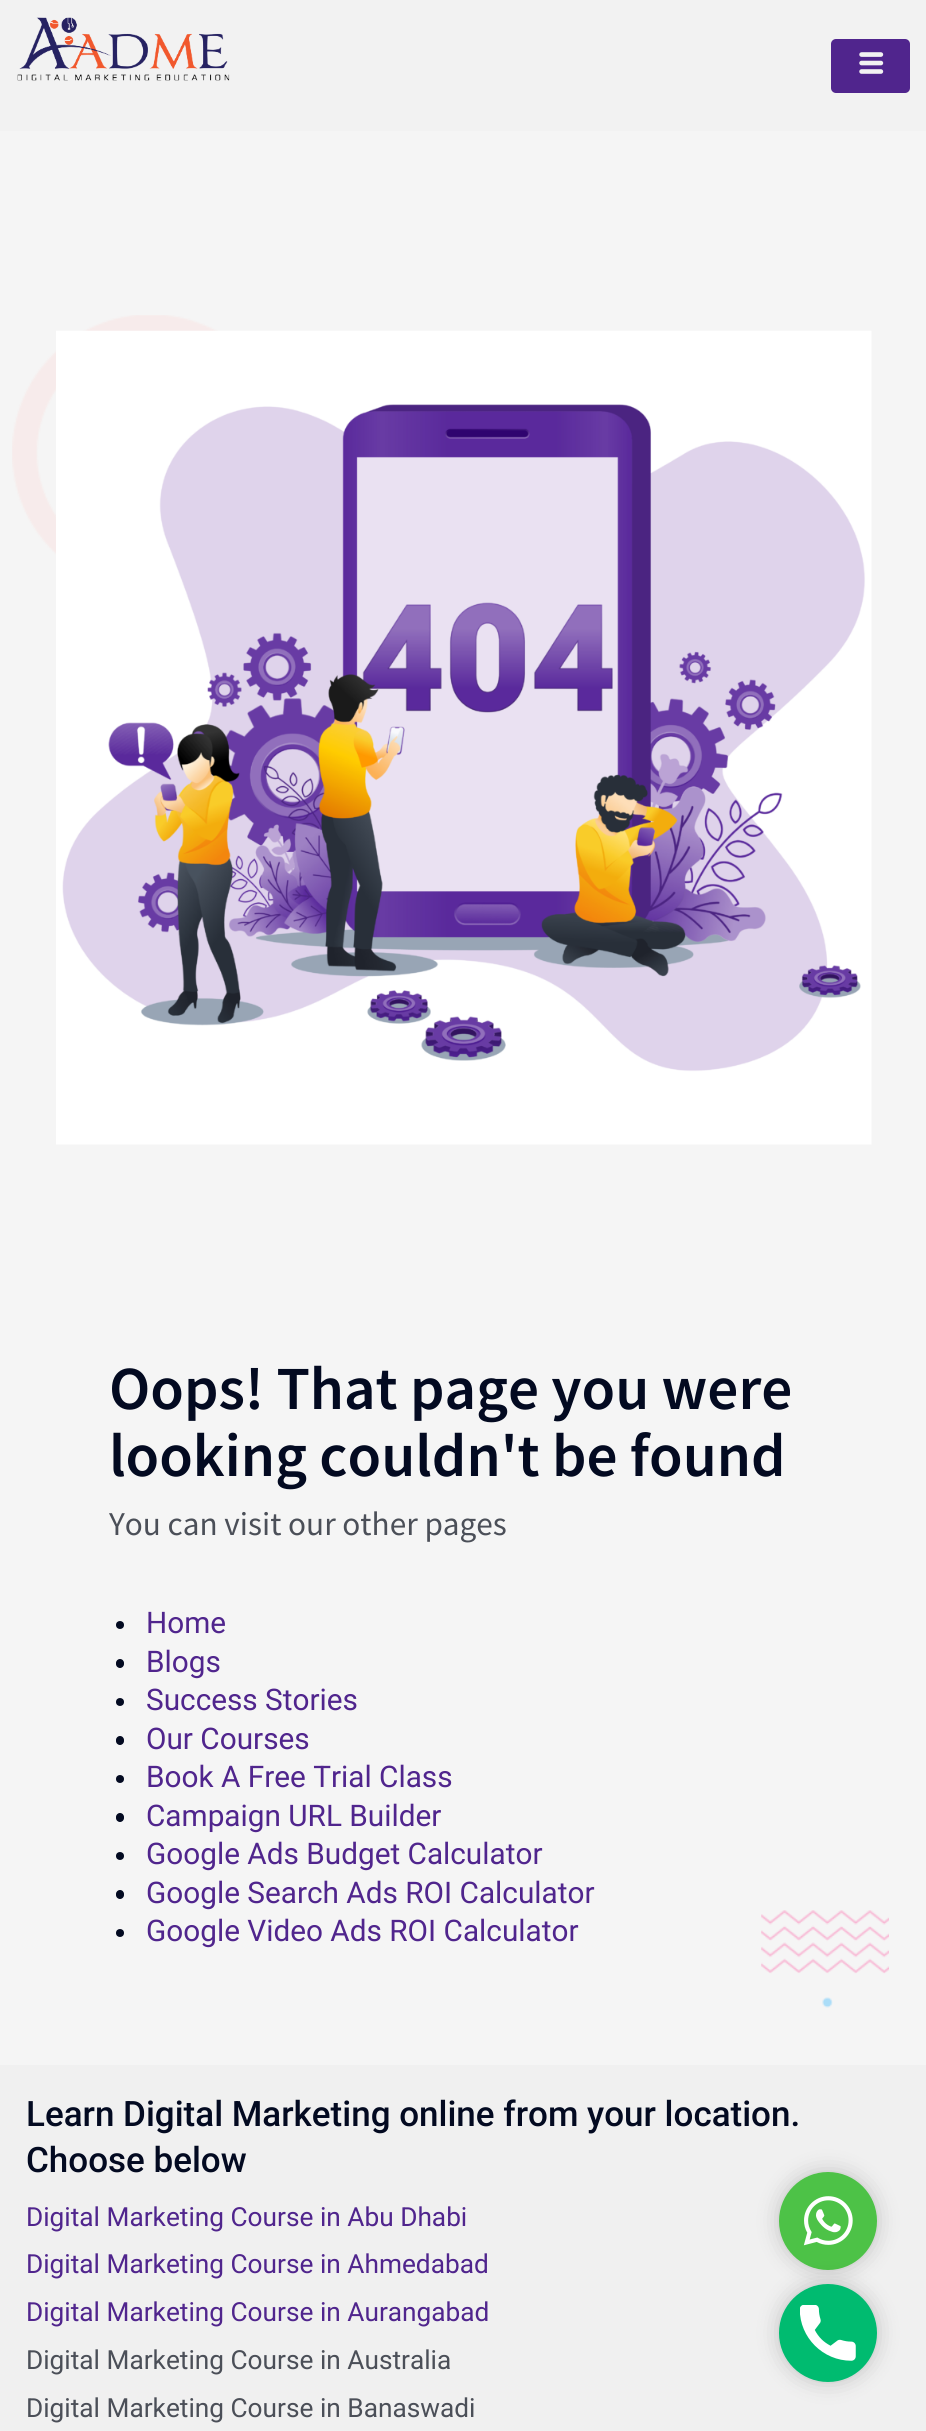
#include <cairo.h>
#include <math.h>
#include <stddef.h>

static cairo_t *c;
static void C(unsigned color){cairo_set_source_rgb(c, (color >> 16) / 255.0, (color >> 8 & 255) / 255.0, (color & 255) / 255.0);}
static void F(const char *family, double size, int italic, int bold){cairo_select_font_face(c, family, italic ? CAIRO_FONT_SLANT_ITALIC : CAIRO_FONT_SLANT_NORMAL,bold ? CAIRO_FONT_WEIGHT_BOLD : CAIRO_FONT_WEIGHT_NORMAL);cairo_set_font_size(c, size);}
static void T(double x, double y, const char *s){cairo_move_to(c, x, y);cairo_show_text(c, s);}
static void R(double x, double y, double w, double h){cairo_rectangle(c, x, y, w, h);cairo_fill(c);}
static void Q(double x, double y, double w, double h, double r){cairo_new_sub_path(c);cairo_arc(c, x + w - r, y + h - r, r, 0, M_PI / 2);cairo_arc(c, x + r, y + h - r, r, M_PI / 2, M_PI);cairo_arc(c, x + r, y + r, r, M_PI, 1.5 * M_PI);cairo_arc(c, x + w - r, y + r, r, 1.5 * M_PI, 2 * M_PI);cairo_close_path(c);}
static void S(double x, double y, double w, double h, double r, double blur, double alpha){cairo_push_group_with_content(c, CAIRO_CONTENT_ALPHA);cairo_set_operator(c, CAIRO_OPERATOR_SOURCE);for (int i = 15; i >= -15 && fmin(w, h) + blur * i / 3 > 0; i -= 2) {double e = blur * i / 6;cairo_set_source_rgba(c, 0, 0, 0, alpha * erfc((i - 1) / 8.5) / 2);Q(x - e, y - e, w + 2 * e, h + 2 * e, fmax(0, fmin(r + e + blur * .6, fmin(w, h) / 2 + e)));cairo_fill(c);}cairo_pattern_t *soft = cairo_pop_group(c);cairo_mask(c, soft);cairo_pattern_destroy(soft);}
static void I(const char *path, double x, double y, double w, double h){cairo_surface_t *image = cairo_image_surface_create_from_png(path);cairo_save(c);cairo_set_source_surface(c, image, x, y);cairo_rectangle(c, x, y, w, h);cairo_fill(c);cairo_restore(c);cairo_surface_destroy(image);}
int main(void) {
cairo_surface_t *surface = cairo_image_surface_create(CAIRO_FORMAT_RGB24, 926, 2431);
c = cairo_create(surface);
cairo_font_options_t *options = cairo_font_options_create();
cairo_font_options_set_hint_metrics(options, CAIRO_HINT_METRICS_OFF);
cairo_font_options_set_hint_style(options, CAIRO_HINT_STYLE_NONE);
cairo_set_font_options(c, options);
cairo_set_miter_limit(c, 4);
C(0xf5f5f5);
cairo_paint(c);
C(0xf2f2f2);
R(0,0,926,131);
I("1.png",17,17,213,64);
C(0x50258d);
Q(831,39,79,54,5);
cairo_fill(c);
I("2.png",859,52,25,22);
I("3.png",12,315,206,240);
I("4.png",56,330,816,815);
F("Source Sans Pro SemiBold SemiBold",61.25,0,0);
C(0x030a21);
T(109,1409,"Oops! That page you were");
T(109,1476,"looking couldn't be found");
F("Source Sans Pro",33.25,0,0);
C(0x4b4f58);
T(109,1535,"You can visit our other pages");
C(0x030a21);
cairo_new_path(c);
cairo_arc(c,120,1625,4,0,2 * M_PI);
cairo_fill(c);
F("Roboto",29.75,0,0);
C(0x50258d);
T(146,1633,"Home");
C(0x030a21);
Q(116,1659,8,9,4);
cairo_fill(c);
C(0x50258d);
T(146,1672,"Blogs");
C(0x030a21);
cairo_new_path(c);
cairo_arc(c,120,1702,4,0,2 * M_PI);
cairo_fill(c);
C(0x50258d);
T(146,1710,"Success Stories");
C(0x030a21);
Q(116,1736,8,9,4);
cairo_fill(c);
C(0x50258d);
T(146,1749,"Our Courses");
C(0x030a21);
cairo_new_path(c);
cairo_arc(c,120,1779,4,0,2 * M_PI);
cairo_fill(c);
C(0x50258d);
T(146,1787,"Book A Free Trial Class");
C(0x030a21);
Q(116,1813,8,9,4);
cairo_fill(c);
C(0x50258d);
T(146,1826,"Campaign URL Builder");
C(0x030a21);
cairo_new_path(c);
cairo_arc(c,120,1856,4,0,2 * M_PI);
cairo_fill(c);
C(0x50258d);
T(146,1864,"Google Ads Budget Calculator");
C(0x030a21);
Q(116,1890,8,9,4);
cairo_fill(c);
C(0x50258d);
T(146,1903,"Google Search Ads ROI Calculator");
C(0x030a21);
cairo_new_path(c);
cairo_arc(c,120,1933,4,0,2 * M_PI);
cairo_fill(c);
C(0x50258d);
T(146,1941,"Google Video Ads ROI Calculator");
I("5.png",761,1910,128,98);
C(0xf0f0f0);
R(0,2065,926,366);
F("Roboto Medium",35,0,0);
C(0x030a21);
T(26,2126,"Learn Digital Marketing online from your location.");
T(26,2172,"Choose below");
F("Roboto",26.25,0,0);
C(0x50258d);
T(26,2226,"Digital Marketing Course in Abu Dhabi");
T(26,2273,"Digital Marketing Course in Ahmedabad");
T(26,2321,"Digital Marketing Course in Aurangabad");
C(0x4b4f58);
T(26,2369,"Digital Marketing Course in Australia");
T(26,2417,"Digital Marketing Course in Banaswadi");
C(0x000000);
S(779,2172,98,98,49,10.5,.2);
C(0x4dc247);
cairo_arc(c,828,2221,49,0,2 * M_PI);
cairo_fill(c);
I("6.png",803,2196,50,50);
C(0x000000);
S(779,2284,98,98,49,10.5,.2);
C(0x00bb70);
cairo_arc(c,828,2333,49,0,2 * M_PI);
cairo_fill(c);
I("7.png",800,2305,56,56);
cairo_surface_write_to_png(surface, "o.png");
cairo_font_options_destroy(options);
cairo_destroy(c);
cairo_surface_destroy(surface);
return 0;
}
